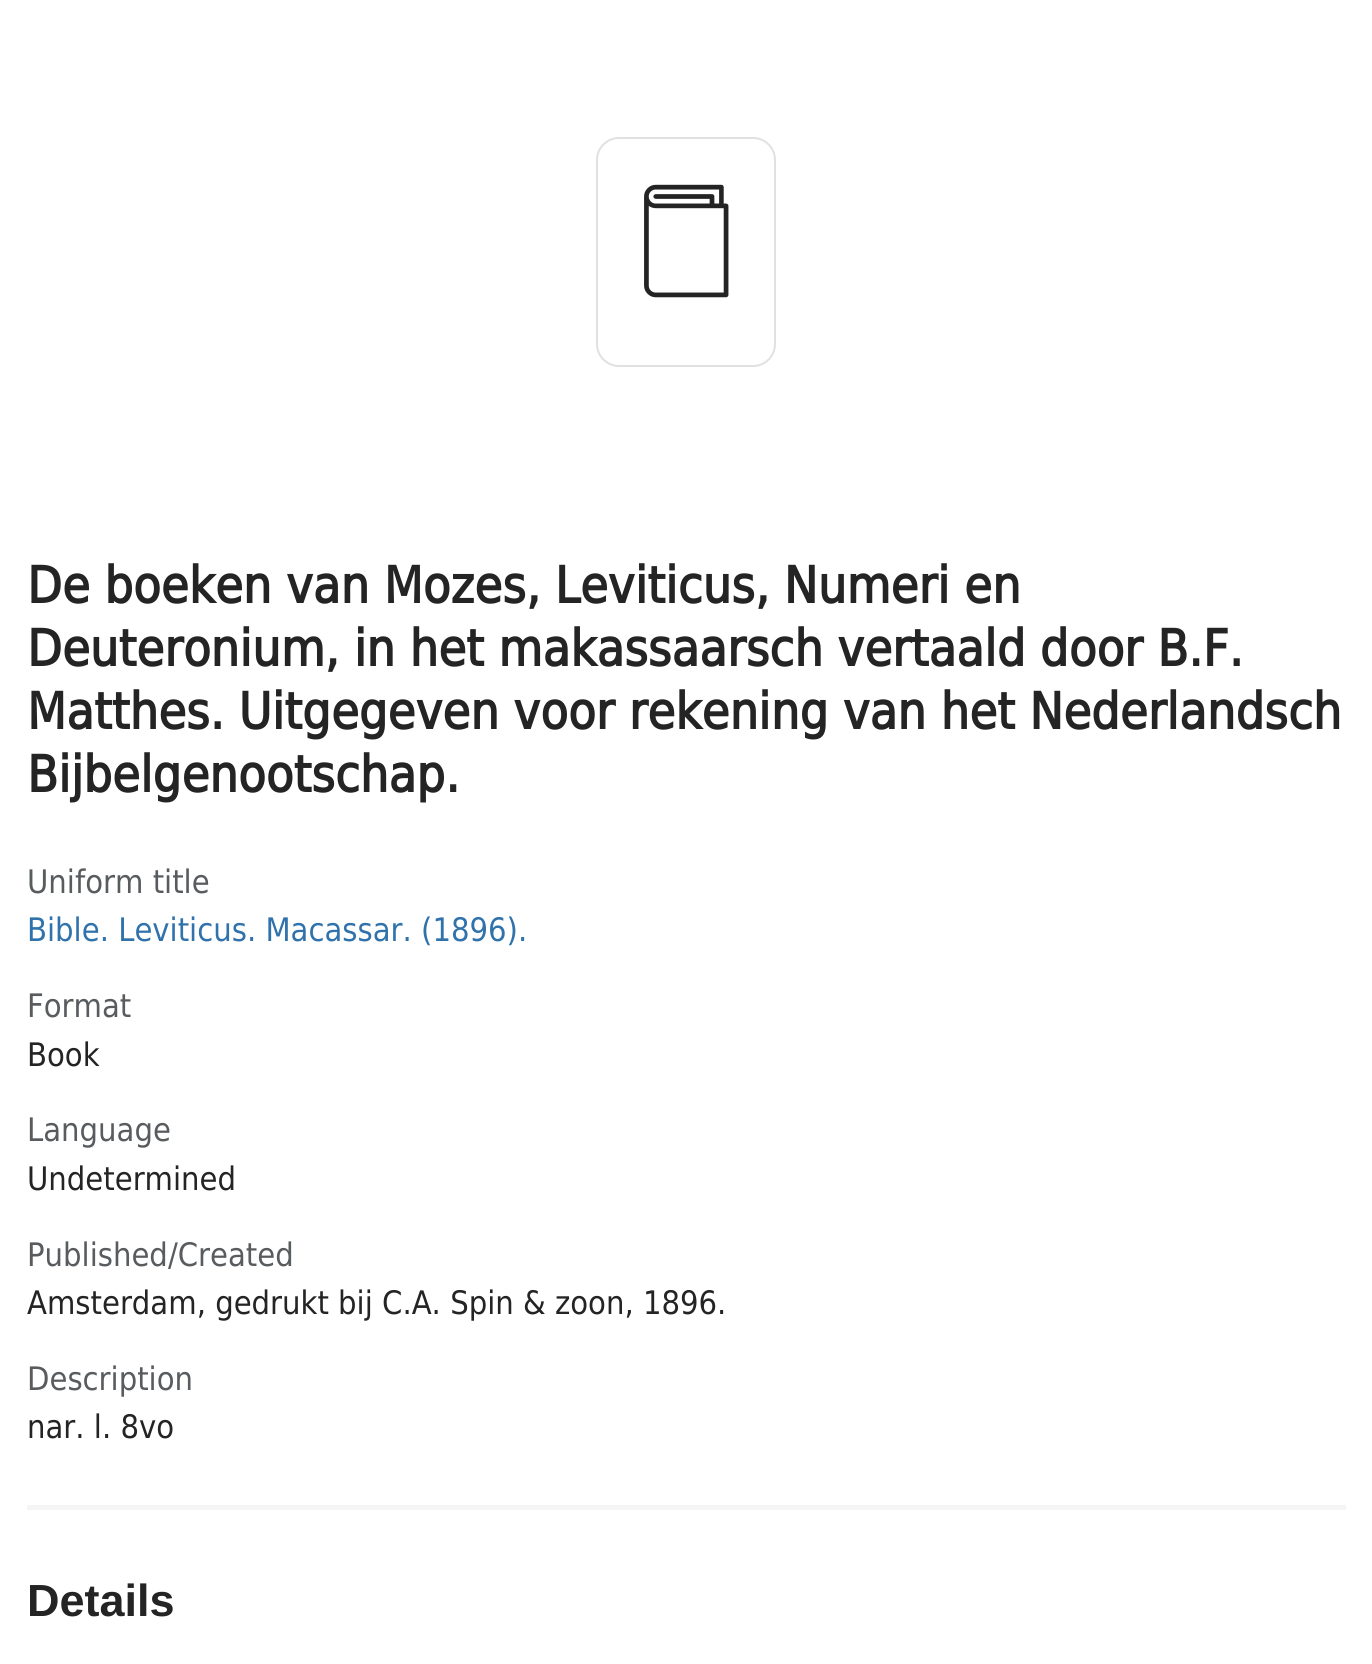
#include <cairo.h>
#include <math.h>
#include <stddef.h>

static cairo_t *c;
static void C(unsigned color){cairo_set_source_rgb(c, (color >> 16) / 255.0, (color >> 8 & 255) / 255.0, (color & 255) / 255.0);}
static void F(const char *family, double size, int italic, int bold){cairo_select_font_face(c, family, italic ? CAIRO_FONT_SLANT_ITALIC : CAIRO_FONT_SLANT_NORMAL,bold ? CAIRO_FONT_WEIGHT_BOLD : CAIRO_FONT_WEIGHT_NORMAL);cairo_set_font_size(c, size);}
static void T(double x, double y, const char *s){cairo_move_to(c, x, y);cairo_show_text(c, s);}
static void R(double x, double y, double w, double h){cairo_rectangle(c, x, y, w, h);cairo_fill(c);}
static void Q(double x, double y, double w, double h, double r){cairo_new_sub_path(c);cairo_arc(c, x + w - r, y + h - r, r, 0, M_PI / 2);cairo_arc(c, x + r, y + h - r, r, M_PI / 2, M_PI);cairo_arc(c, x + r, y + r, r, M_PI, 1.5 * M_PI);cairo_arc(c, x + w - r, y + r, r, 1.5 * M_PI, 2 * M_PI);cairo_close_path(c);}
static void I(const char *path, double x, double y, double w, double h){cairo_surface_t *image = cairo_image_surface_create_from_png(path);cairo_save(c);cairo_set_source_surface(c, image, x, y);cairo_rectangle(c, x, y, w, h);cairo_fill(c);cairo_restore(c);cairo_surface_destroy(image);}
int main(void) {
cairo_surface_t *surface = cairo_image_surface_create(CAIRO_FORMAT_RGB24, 1372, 1664);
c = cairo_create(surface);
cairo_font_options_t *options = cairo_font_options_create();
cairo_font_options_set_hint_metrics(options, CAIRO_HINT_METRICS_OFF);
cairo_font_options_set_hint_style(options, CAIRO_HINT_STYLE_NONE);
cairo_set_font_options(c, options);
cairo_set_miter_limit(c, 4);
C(0xffffff);
cairo_paint(c);
Q(597,138,178,228,22);
C(0xe1e1e1);
cairo_stroke(c);
I("1.png",644,184,85,114);
F("DejaVu Sans",50.4,0,1);
C(0x242424);
T(27,603,"De boeken van Mozes, Leviticus, Numeri en");
T(27,666,"Deuteronium, in het makassaarsch vertaald door B.F.");
T(27,729,"Matthes. Uitgegeven voor rekening van het Nederlandsch");
T(27,792,"Bijbelgenootschap.");
C(0xf5f5f5);
R(27,1505,1319,5);
F("DejaVu Sans",32.4,0,0);
C(0x595c5f);
T(27,893,"Uniform title");
C(0x3072ab);
T(27,941,"Bible. Leviticus. Macassar. (1896).");
C(0x595c5f);
T(27,1017,"Format");
C(0x242424);
T(27,1066,"Book");
C(0x595c5f);
T(27,1141,"Language");
C(0x242424);
T(27,1190,"Undetermined");
C(0x595c5f);
T(27,1266,"Published/Created");
C(0x242424);
T(27,1314,"Amsterdam, gedrukt bij C.A. Spin & zoon, 1896.");
C(0x595c5f);
T(27,1390,"Description");
C(0x242424);
T(27,1438,"nar. l. 8vo");
F("Liberation Sans",45,0,1);
T(27,1616,"Details");
cairo_surface_write_to_png(surface, "o.png");
cairo_font_options_destroy(options);
cairo_destroy(c);
cairo_surface_destroy(surface);
return 0;
}
